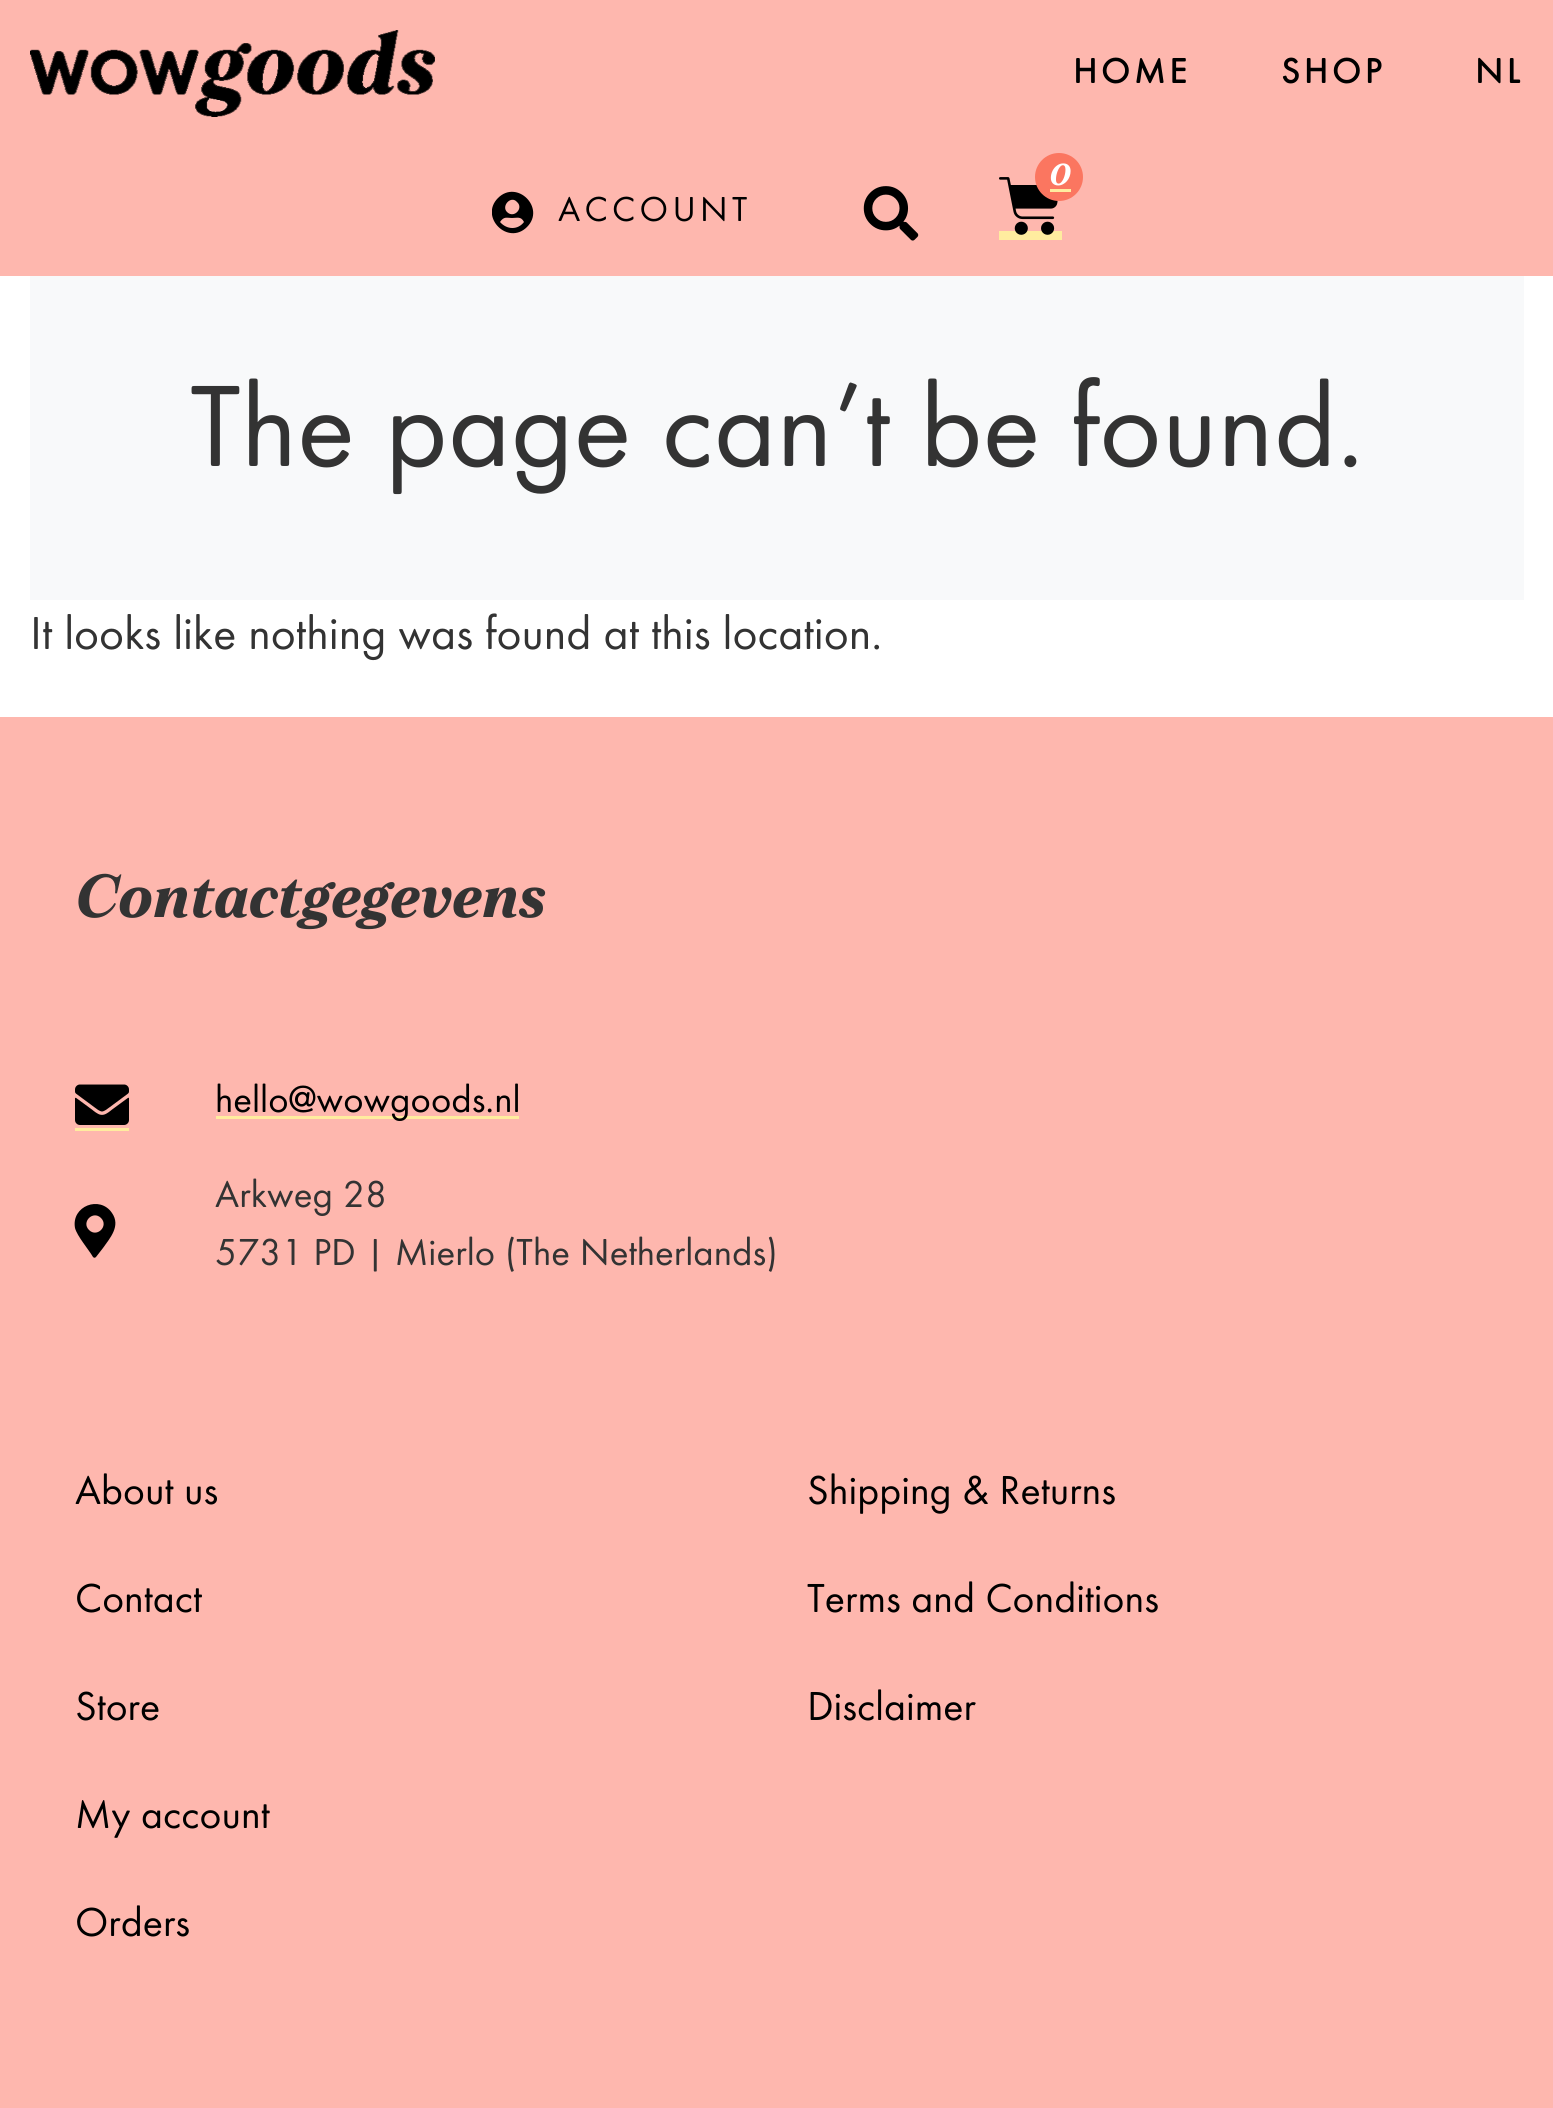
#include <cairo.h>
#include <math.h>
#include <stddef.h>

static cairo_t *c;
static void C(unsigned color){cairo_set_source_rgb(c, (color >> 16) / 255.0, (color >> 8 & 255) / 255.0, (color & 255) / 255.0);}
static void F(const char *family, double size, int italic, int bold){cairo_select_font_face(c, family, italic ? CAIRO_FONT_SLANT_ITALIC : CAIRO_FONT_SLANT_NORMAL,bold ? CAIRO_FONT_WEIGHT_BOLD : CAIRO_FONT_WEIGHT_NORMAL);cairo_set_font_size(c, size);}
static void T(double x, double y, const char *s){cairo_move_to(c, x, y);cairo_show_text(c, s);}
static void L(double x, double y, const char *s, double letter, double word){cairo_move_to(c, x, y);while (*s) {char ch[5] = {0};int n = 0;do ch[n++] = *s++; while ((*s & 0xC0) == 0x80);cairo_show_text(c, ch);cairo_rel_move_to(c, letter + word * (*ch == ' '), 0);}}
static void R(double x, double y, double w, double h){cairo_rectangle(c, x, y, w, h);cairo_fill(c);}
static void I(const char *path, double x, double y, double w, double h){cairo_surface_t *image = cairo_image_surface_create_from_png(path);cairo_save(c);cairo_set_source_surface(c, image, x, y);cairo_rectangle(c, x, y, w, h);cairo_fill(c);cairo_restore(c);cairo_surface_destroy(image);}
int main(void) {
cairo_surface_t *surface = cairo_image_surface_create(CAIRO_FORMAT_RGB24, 1553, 2108);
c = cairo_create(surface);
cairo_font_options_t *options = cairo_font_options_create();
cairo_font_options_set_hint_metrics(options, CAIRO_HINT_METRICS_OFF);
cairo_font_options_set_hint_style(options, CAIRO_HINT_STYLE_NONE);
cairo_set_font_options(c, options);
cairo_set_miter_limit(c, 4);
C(0xffffff);
cairo_paint(c);
C(0xfeb7ae);
R(0,0,1553,276);
I("1.png",30,30,405,87);
F("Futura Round",36,0,1);
C(0x000000);
L(1073,83,"HOME",4.25,0);
L(1281,83,"SHOP",4.25,0);
L(1475,83,"NL",4.25,0);
C(0xffec9f);
R(999,231,63,9);
I("2.png",999,177,59,58);
C(0xfb7660);
cairo_arc(c,1059,177,24,0,2 * M_PI);
cairo_fill(c);
F("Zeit",30,1,1);
C(0xffffff);
T(1049,185,"0");
C(0xffec9f);
R(1050,189,21,3);
cairo_save(c);
cairo_rectangle(c,492,186,258,54);
cairo_clip(c);
C(0x000000);
cairo_new_path(c);
cairo_move_to(c,498,198);
cairo_curve_to(c,517,179,546,208,527,227);
cairo_curve_to(c,508,246,479,217,498,198);
cairo_close_path(c);
cairo_move_to(c,517,202);
cairo_curve_to(c,511,195,501,206,507,212);
cairo_curve_to(c,514,219,524,208,517,202);
cairo_close_path(c);
cairo_move_to(c,500,222);
cairo_curve_to(c,507,230,518,230,524,222);
cairo_curve_to(c,521,216,517,218,512,218);
cairo_curve_to(c,507,218,504,216,500,222);
cairo_close_path(c);
cairo_fill(c);
cairo_restore(c);
F("Futura Round",36,0,0);
C(0x000000);
L(558,221,"ACCOUNT",4.25,0);
I("3.png",863,186,56,55);
C(0xf8f9fa);
R(30,276,1494,324);
F("Futura Round",120,0,0);
C(0x333333);
T(190,466,"The page can’t be found.");
F("Futura Round",48,0,0);
T(30,649,"It looks like nothing was found at this location.");
C(0xfeb7ae);
R(0,717,1553,1391);
F("Zeit",60,1,1);
C(0x333333);
T(75,917,"Contactgegevens");
I("4.png",75,1084,54,41);
C(0xffec9f);
R(75,1128,54,3);
R(216,1116,303,3);
F("Futura Round",39,0,0);
C(0x000000);
T(215,1112,"hello@wowgoods.nl");
cairo_new_path(c);
cairo_move_to(c,93,1257);
cairo_curve_to(c,89,1250,77,1236,75,1228);
cairo_curve_to(c,71,1206,100,1195,112,1213);
cairo_curve_to(c,121,1226,110,1238,103,1248);
cairo_line_to(c,96,1257);
cairo_curve_to(c,95,1258,94,1258,93,1257);
cairo_close_path(c);
cairo_move_to(c,89,1230);
cairo_curve_to(c,97,1238,109,1226,101,1218);
cairo_curve_to(c,93,1210,81,1222,89,1230);
cairo_close_path(c);
cairo_fill(c);
C(0x333333);
T(215,1207,"Arkweg 28");
T(215,1265,"5731 PD | Mierlo (The Netherlands)");
F("Futura Round",42,0,0);
C(0x000000);
T(75,1504,"About us");
T(75,1612,"Contact");
T(75,1720,"Store");
T(75,1828,"My account");
T(75,1936,"Orders");
T(807,1504,"Shipping & Returns");
T(807,1612,"Terms and Conditions");
T(807,1720,"Disclaimer");
cairo_surface_write_to_png(surface, "o.png");
cairo_font_options_destroy(options);
cairo_destroy(c);
cairo_surface_destroy(surface);
return 0;
}
